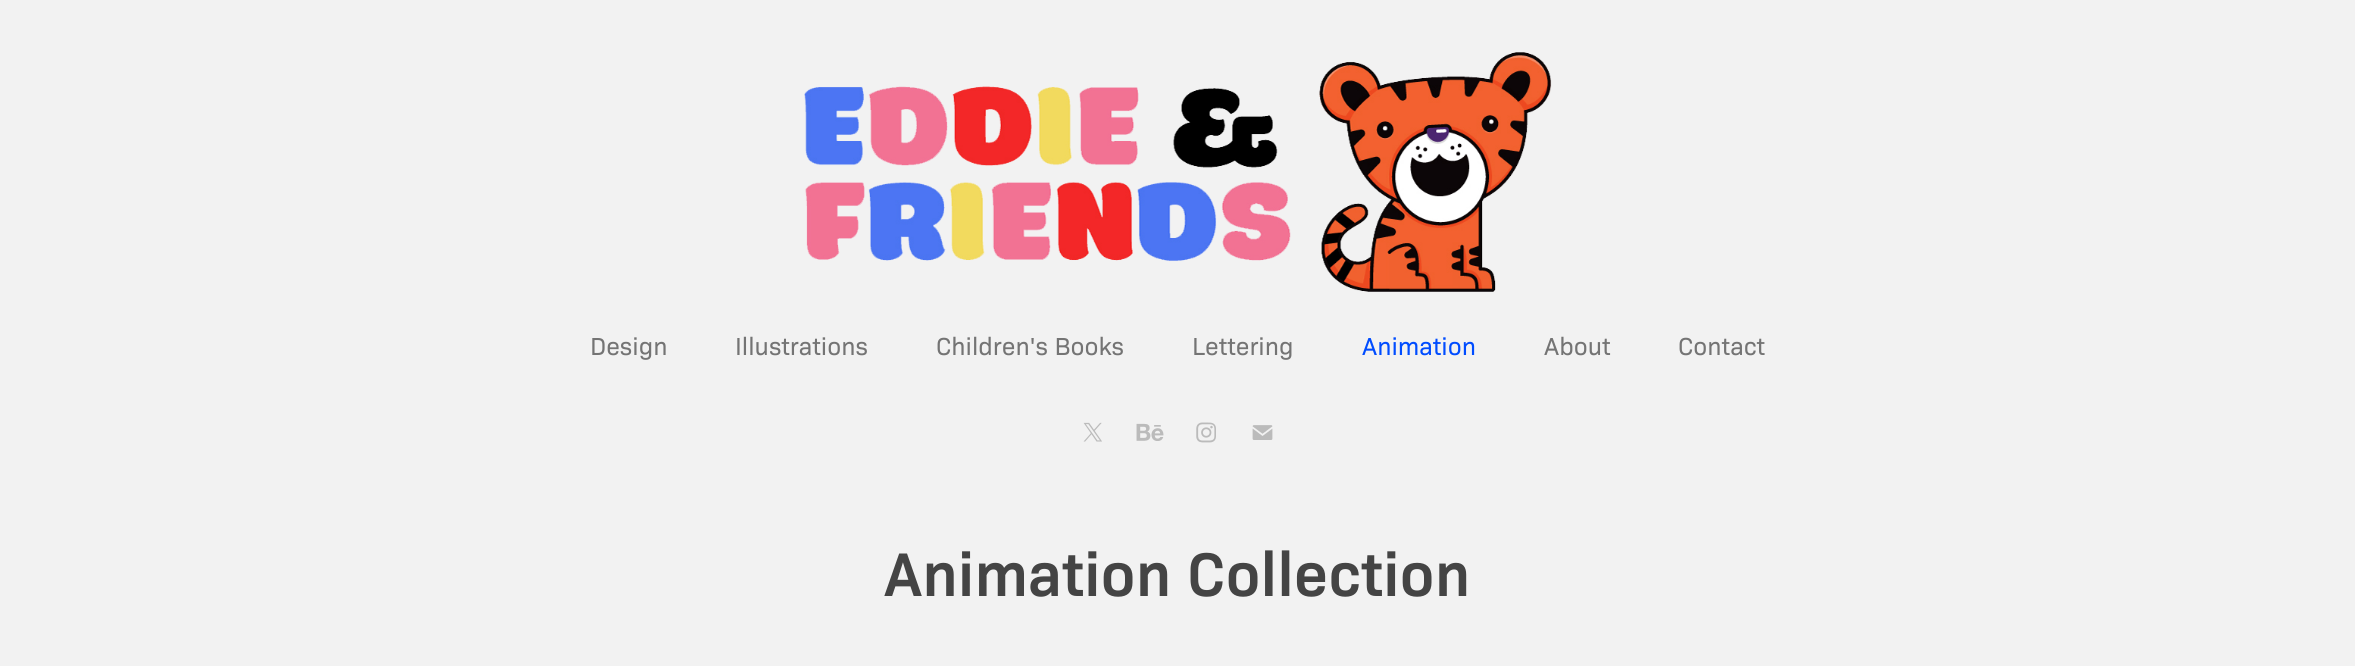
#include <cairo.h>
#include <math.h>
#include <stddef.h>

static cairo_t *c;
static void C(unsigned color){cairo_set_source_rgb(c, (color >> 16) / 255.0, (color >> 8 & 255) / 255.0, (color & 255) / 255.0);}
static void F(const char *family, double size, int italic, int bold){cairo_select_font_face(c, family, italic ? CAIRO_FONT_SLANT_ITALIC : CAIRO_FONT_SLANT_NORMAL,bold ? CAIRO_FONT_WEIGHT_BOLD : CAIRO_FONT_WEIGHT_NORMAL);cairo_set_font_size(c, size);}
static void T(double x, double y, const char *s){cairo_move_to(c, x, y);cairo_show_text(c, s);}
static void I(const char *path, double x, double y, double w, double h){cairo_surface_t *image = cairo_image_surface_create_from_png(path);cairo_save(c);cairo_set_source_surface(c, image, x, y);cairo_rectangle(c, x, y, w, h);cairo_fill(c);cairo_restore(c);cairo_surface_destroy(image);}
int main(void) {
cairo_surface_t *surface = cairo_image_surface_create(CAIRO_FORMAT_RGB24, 2355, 666);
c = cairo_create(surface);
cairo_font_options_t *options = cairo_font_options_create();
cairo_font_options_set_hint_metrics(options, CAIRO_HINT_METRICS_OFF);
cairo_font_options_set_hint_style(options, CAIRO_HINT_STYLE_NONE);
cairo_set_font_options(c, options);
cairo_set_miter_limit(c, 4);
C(0xf2f2f2);
cairo_paint(c);
I("1.png",804,52,748,240);
F("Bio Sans",25,0,0);
C(0x747474);
T(590,355,"Design");
T(735,355,"Illustrations");
T(936,355,"Children's Books");
T(1192,355,"Lettering");
C(0x004cff);
T(1362,355,"Animation");
C(0x747474);
T(1544,355,"About");
T(1678,355,"Contact");
I("2.png",1083,422,19,20);
I("3.png",1136,423,28,18);
I("4.png",1196,422,20,21);
I("5.png",1252,425,21,15);
F("Bio Sans SemiBold",62.5,0,0);
C(0x444444);
T(884,596,"Animation Collection");
cairo_surface_write_to_png(surface, "o.png");
cairo_font_options_destroy(options);
cairo_destroy(c);
cairo_surface_destroy(surface);
return 0;
}
